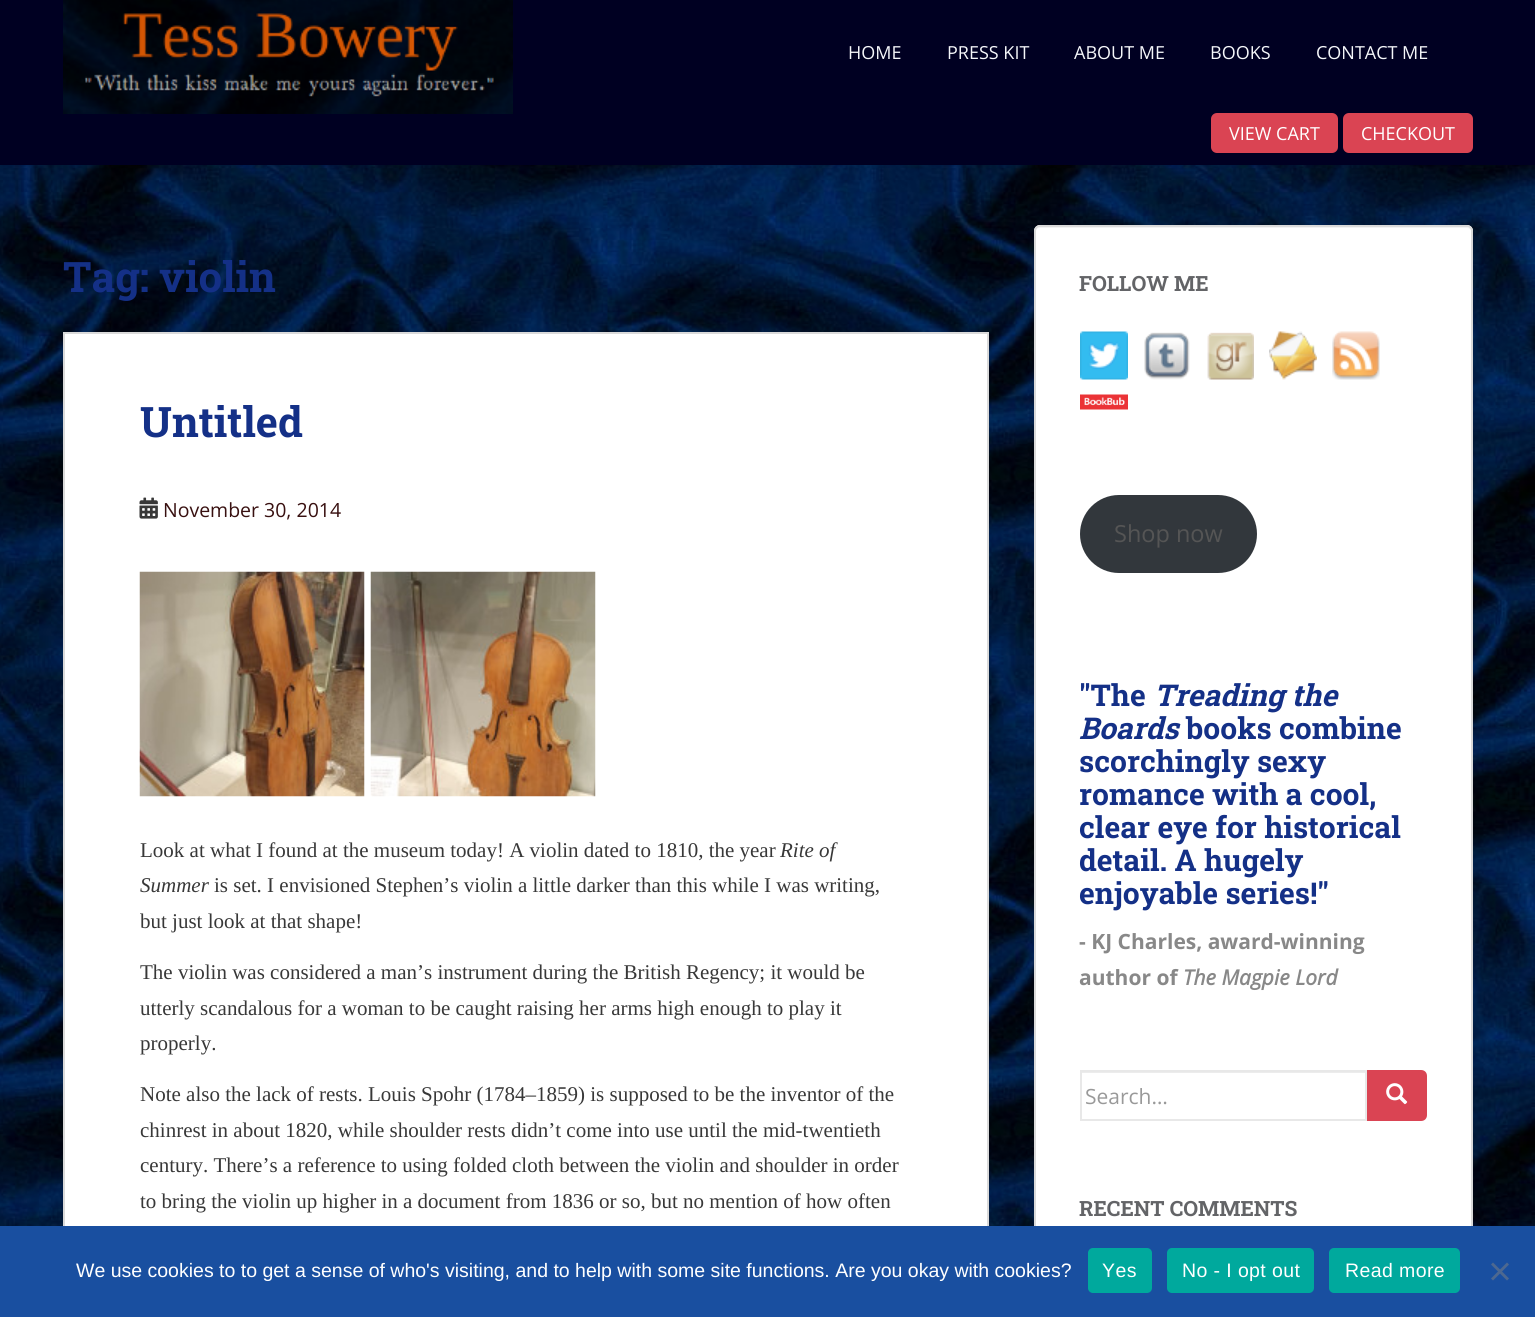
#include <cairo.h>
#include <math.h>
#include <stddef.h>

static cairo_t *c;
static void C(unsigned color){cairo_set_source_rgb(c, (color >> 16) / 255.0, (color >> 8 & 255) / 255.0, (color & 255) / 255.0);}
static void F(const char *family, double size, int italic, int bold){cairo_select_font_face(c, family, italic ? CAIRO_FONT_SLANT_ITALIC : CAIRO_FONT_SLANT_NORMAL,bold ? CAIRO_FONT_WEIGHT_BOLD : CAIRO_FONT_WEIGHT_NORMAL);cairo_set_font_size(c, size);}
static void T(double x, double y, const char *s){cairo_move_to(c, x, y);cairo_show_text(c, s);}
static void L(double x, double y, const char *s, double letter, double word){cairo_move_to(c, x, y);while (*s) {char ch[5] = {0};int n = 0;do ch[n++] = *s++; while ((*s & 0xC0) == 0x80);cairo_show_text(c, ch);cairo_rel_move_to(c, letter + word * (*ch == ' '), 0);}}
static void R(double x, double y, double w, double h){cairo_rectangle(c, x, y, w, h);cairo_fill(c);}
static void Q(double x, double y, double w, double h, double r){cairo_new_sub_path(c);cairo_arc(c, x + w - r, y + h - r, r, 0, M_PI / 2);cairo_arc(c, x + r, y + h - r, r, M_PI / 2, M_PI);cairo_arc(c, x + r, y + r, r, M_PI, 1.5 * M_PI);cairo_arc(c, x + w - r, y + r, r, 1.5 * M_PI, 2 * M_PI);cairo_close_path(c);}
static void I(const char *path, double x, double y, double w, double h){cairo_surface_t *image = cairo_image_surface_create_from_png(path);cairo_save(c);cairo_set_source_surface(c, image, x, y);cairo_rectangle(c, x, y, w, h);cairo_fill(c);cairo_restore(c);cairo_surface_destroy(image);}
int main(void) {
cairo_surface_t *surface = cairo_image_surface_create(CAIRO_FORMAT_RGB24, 1535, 1317);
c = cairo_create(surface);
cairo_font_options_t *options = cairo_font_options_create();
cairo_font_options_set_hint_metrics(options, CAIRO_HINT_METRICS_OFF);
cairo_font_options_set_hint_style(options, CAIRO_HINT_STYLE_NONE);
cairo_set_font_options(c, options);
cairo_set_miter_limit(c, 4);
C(0xffffff);
cairo_paint(c);
I("1.png",0,165,1535,1061);
C(0x000022);
R(0,0,1535,165);
I("2.png",63,0,450,114);
F("Open Sans",18,0,0);
C(0xf5f7fa);
T(848,59,"HOME");
T(947,59,"PRESS KIT");
T(1074,59,"ABOUT ME");
T(1210,59,"BOOKS");
T(1316,59,"CONTACT ME");
C(0xda4453);
Q(1211,113,127,40,6);
cairo_fill(c);
C(0xffffff);
T(1229,140,"VIEW CART");
C(0xda4453);
Q(1343,113,130,40,6);
cairo_fill(c);
C(0xffffff);
T(1361,140,"CHECKOUT");
F("Roboto Slab",42,0,1);
C(0x143087);
T(63,292,"Tag: violin");
C(0xffffff);
R(65,334,922,892);
cairo_rectangle(c,64,333,924,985);
C(0xdadada);
cairo_stroke(c);
C(0x143087);
T(140,437,"Untitled");
I("3.png",139,497,19,22);
F("Open Sans",19.5,0,0);
C(0x381010);
T(163,517,"November 30, 2014");
I("4.png",139,571,226,226);
I("5.png",370,571,226,226);
F("Liberation Serif",21,0,0);
C(0x383838);
T(140,857,"Look at what I found at the museum today! A violin dated to 1810, the year");
F("Liberation Serif",21,1,0);
T(780,857,"Rite of");
T(140,892,"Summer");
F("Liberation Serif",21,0,0);
T(214,892,"is set. I envisioned Stephen’s violin a little darker than this while I was writing,");
T(140,928,"but just look at that shape!");
T(140,979,"The violin was considered a man’s instrument during the British Regency; it would be");
T(140,1015,"utterly scandalous for a woman to be caught raising her arms high enough to play it");
T(140,1050,"properly.");
T(140,1101,"Note also the lack of rests. Louis Spohr (1784–1859) is supposed to be the inventor of the");
T(140,1137,"chinrest in about 1820, while shoulder rests didn’t come into use until the mid-twentieth");
T(140,1172,"century. There’s a reference to using folded cloth between the violin and shoulder in order");
T(140,1208,"to bring the violin up higher in a document from 1836 or so, but no mention of how often");
C(0xffffff);
Q(1034,225,439,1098,6);
cairo_fill(c);
C(0xf2f2f2);
cairo_new_path(c);
cairo_move_to(c,1040,228);
cairo_line_to(c,1467,228);
cairo_curve_to(c,1469,228,1472,230,1472,232);
cairo_curve_to(c,1472,229,1470,227,1467,227);
cairo_line_to(c,1040,227);
cairo_curve_to(c,1037,227,1035,229,1035,232);
cairo_curve_to(c,1035,230,1037,228,1040,228);
cairo_close_path(c);
cairo_fill(c);
Q(1035,226,437,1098,5);
C(0xdadada);
cairo_stroke(c);
F("Roboto Slab",21,0,1);
C(0x636467);
T(1079,291,"FOLLOW ME");
I("6.png",1080,331,48,49);
I("7.png",1144,332,46,48);
I("8.png",1207,332,47,48);
I("9.png",1269,331,48,49);
I("10.png",1332,331,48,49);
I("11.png",1080,394,48,16);
C(0x32373c);
Q(1080,495,177,78,39);
cairo_fill(c);
F("Open Sans",23.5,0,0);
C(0x555555);
T(1114,542,"Shop now");
F("Roboto Slab",30,0,1);
C(0x143087);
T(1079,706,"\"The");
F("Roboto Slab",30,1,1);
T(1154,706,"Treading the");
T(1079,739,"Boards");
F("Roboto Slab",30,0,1);
T(1186,739,"books combine");
T(1079,772,"scorchingly sexy");
T(1079,805,"romance with a cool,");
T(1079,838,"clear eye for historical");
T(1079,871,"detail. A hugely");
T(1079,904,"enjoyable series!\"");
F("Open Sans",21,0,1);
C(0x888888);
T(1079,949,"- KJ Charles, award-winning");
T(1079,985,"author of");
F("Open Sans",21,1,1);
T(1183,985,"The Magpie Lord");
C(0xececec);
R(1082,1072,283,1);
cairo_rectangle(c,1081,1071,285,49);
C(0xe8e8e8);
cairo_stroke(c);
F("Open Sans",21,0,0);
C(0x999999);
T(1085,1104,"Search…");
C(0xda4453);
cairo_new_path(c);
cairo_move_to(c,1368,1071);
cairo_line_to(c,1421,1071);
cairo_curve_to(c,1424,1071,1426,1073,1426,1076);
cairo_line_to(c,1426,1115);
cairo_curve_to(c,1426,1118,1424,1120,1421,1120);
cairo_line_to(c,1368,1120);
cairo_close_path(c);
cairo_fill_preserve(c);
cairo_stroke(c);
I("12.png",1386,1083,22,22);
F("Roboto Slab",21,0,1);
C(0x636467);
T(1079,1216,"RECENT COMMENTS");
C(0x194fa0);
R(0,1226,1535,91);
F("Liberation Sans",19.5,0,0);
C(0xffffff);
T(76,1277,"We use cookies to to get a sense of who's visiting, and to help with some site functions. Are you okay with cookies?");
C(0x00a99d);
Q(1088,1248,64,45,5);
cairo_fill(c);
C(0xffffff);
L(1102,1277,"Yes",.4,0);
C(0x00a99d);
Q(1167,1248,147,45,5);
cairo_fill(c);
C(0xffffff);
L(1182,1277,"No - I opt out",.4,0);
C(0x00a99d);
Q(1329,1248,131,45,5);
cairo_fill(c);
C(0xffffff);
L(1345,1277,"Read more",.4,0);
C(0x4d6890);
cairo_new_path(c);
cairo_move_to(c,1507,1262.5);
cairo_line_to(c,1509,1264.5);
cairo_line_to(c,1493,1280.5);
cairo_line_to(c,1491,1278.5);
cairo_close_path(c);
cairo_fill(c);
cairo_new_path(c);
cairo_move_to(c,1491,1264.5);
cairo_line_to(c,1493,1262.5);
cairo_line_to(c,1509,1278.5);
cairo_line_to(c,1507,1280.5);
cairo_close_path(c);
cairo_fill(c);
cairo_surface_write_to_png(surface, "o.png");
cairo_font_options_destroy(options);
cairo_destroy(c);
cairo_surface_destroy(surface);
return 0;
}
